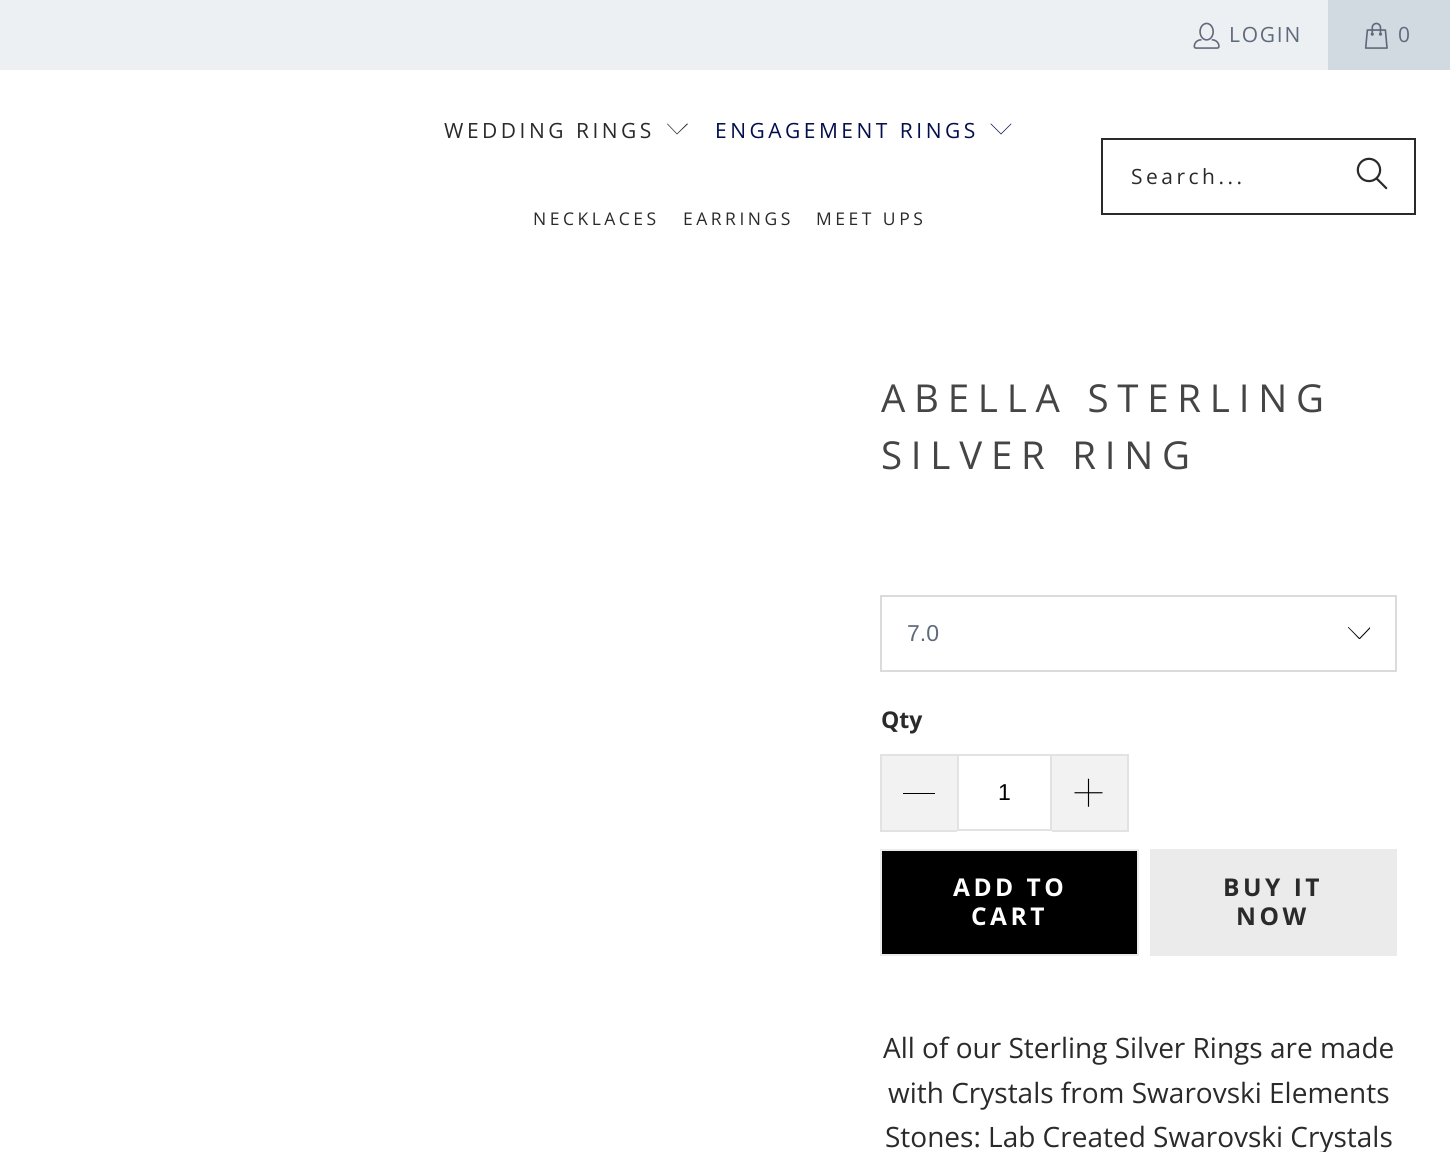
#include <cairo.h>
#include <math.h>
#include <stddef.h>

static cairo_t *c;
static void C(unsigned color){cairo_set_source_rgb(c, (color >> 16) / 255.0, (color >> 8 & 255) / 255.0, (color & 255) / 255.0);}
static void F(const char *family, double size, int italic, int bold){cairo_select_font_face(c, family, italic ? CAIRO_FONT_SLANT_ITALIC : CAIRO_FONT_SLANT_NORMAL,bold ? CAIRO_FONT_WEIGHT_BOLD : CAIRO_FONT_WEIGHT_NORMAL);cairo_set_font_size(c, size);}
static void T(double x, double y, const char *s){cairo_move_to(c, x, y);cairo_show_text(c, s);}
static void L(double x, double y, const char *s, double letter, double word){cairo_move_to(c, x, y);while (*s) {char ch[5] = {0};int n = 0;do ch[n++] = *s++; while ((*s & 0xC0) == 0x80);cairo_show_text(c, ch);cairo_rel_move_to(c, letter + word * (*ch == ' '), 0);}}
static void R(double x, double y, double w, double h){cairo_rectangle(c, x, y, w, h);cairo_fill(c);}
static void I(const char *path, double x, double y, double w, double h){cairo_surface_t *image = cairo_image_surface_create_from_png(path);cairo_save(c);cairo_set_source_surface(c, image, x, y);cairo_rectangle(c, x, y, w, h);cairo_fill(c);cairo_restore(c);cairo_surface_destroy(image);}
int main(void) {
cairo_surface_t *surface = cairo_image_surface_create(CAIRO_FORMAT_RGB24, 1450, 1152);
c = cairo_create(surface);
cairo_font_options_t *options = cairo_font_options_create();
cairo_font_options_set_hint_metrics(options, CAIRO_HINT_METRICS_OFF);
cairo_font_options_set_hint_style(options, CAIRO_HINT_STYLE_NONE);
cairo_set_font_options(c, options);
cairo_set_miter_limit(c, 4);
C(0xffffff);
cairo_paint(c);
C(0xecf0f3);
R(0,0,1328,70);
I("1.png",1193,22,27,27);
F("Open Sans",21,0,0);
C(0x5f6a7d);
L(1229,42,"LOGIN",1.75,0);
C(0xd1d9e1);
R(1328,0,122,70);
I("2.png",1364,22,24,27);
C(0x5f6a7d);
L(1398,42,"0",1.75,0);
C(0x2b2a2a);
L(444,138,"WEDDING RINGS",3.5,0);
cairo_new_path(c);
cairo_move_to(c,677,134.5);
cairo_line_to(c,667,124);
cairo_line_to(c,667.5,123.5);
cairo_line_to(c,677,133.5);
cairo_line_to(c,687,123.5);
cairo_line_to(c,688,124);
cairo_close_path(c);
cairo_fill(c);
C(0x020f4c);
L(715,138,"ENGAGEMENT RINGS",3.5,0);
cairo_new_path(c);
cairo_move_to(c,1001,134.5);
cairo_line_to(c,990.5,124);
cairo_line_to(c,991,123.5);
cairo_line_to(c,1001,133.5);
cairo_line_to(c,1011,123.5);
cairo_line_to(c,1011.5,124);
cairo_close_path(c);
cairo_fill(c);
F("Open Sans",17.5,0,0);
C(0x2b2a2a);
L(533,225,"NECKLACES",3.5,0);
L(683,225,"EARRINGS",3.5,0);
L(816,225,"MEET UPS",3.5,0);
cairo_rectangle(c,1102,139,313,75);
cairo_stroke(c);
F("Open Sans",21,0,0);
L(1131,184,"Search...",3.5,0);
I("3.png",1356,157,32,33);
F("Open Sans",38.5,0,0);
C(0x454545);
L(881,412,"ABELLA STERLING",8.75,0);
L(881,469,"SILVER RING",8.75,0);
cairo_save(c);
cairo_rectangle(c,1348,627,22,12);
cairo_clip(c);
C(0x000000);
cairo_new_path(c);
cairo_move_to(c,1359.5,639.5);
cairo_line_to(c,1347.5,627);
cairo_line_to(c,1348,626.5);
cairo_line_to(c,1359.5,638);
cairo_line_to(c,1370.5,626.5);
cairo_line_to(c,1371.5,627);
cairo_close_path(c);
cairo_fill(c);
cairo_restore(c);
cairo_rectangle(c,881,596,515,75);
C(0xd9dbdc);
cairo_stroke(c);
F("Liberation Sans",23,0,0);
C(0x5f6a7d);
T(907,641,"7.0");
F("Open Sans",23,0,1);
C(0x2b2a2a);
T(881,728,"Qty");
C(0xf2f2f2);
R(882,756,75,74);
C(0xe2e2e2);
R(880,754,77,2);
R(880,830,77,2);
R(880,754,2,77);
C(0x000000);
R(903,793,32,1);
cairo_rectangle(c,958,755,93,75);
C(0xe2e2e2);
cairo_stroke(c);
F("Liberation Sans",23,0,0);
C(0x000000);
T(998,800,"1");
C(0xf2f2f2);
R(1052,756,75,74);
C(0xe2e2e2);
R(1052,754,77,2);
R(1127,754,2,77);
R(1052,830,77,2);
I("4.png",1074,778,29,29);
C(0x000000);
cairo_rectangle(c,881,850,257,105);
cairo_fill_preserve(c);
C(0xebebeb);
cairo_stroke(c);
F("Open Sans",24.5,0,1);
C(0xffffff);
L(953,896,"ADD TO",3.5,0);
L(971,925,"CART",3.5,0);
C(0xebebeb);
R(1150,849,247,107);
C(0x2b2a2a);
L(1223,896,"BUY IT",3.5,0);
L(1236,925,"NOW",3.5,0);
F("Open Sans",28,0,0);
T(883,1058,"All of our Sterling Silver Rings are made");
T(888,1103,"with Crystals from Swarovski Elements");
T(885,1147,"Stones: Lab Created Swarovski Crystals");
cairo_surface_write_to_png(surface, "o.png");
cairo_font_options_destroy(options);
cairo_destroy(c);
cairo_surface_destroy(surface);
return 0;
}
